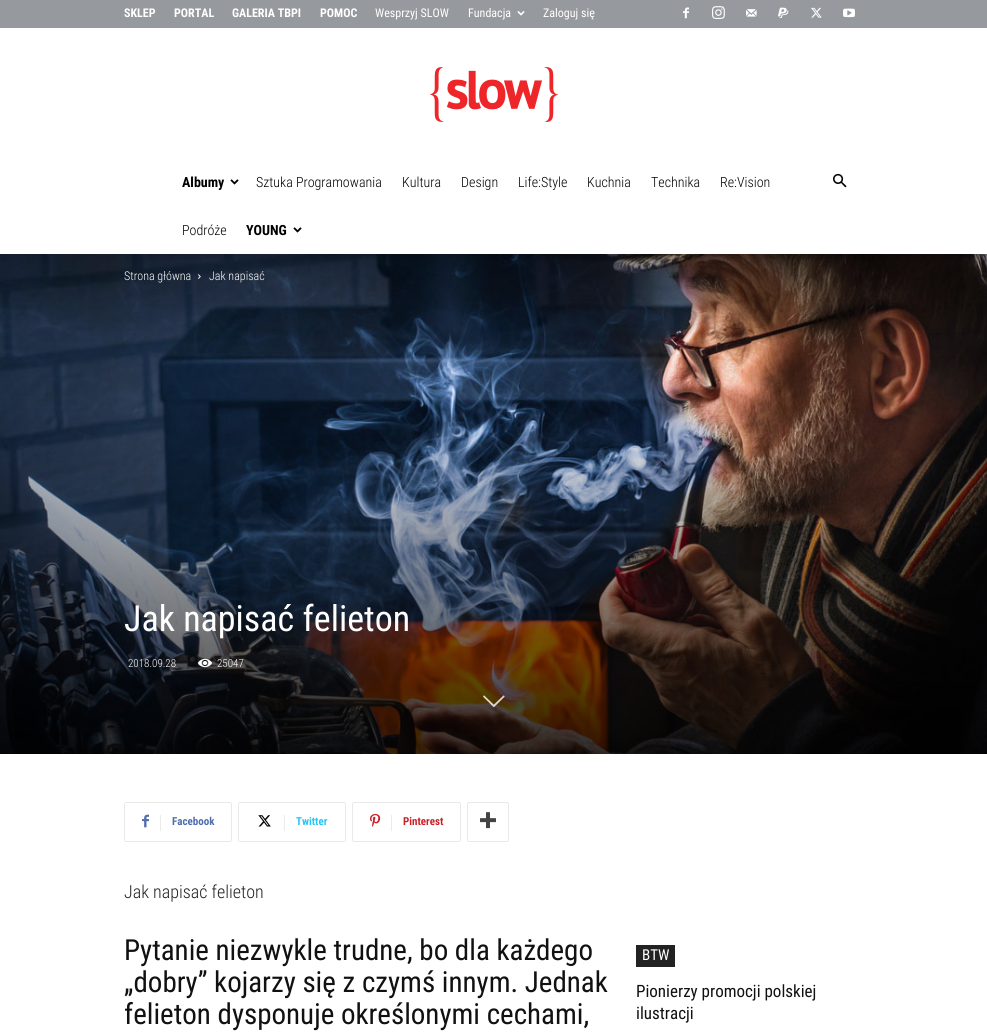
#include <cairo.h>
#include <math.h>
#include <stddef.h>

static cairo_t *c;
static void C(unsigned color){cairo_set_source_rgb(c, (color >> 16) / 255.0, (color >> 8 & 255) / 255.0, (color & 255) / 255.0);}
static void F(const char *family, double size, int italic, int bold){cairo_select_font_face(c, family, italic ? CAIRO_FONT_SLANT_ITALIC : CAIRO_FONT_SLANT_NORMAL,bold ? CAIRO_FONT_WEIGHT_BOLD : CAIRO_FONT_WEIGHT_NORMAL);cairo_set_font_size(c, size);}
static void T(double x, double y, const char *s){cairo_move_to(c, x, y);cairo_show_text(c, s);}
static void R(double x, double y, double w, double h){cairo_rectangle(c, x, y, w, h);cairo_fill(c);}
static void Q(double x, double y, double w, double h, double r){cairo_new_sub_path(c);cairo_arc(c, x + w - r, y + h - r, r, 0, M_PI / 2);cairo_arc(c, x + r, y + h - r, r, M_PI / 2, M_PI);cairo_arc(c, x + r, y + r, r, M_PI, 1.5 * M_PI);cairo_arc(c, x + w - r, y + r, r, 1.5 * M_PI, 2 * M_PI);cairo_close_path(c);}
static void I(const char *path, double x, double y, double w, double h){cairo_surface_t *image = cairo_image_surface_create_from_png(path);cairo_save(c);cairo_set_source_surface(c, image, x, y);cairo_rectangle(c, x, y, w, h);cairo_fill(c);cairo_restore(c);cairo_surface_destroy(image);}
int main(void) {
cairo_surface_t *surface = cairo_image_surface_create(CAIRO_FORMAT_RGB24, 987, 1036);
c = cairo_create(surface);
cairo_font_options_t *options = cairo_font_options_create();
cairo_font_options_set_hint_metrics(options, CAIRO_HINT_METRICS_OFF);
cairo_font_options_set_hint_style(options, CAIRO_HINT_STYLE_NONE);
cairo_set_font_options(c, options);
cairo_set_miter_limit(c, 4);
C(0xffffff);
cairo_paint(c);
C(0x96999e);
R(0,0,987,28);
F("Roboto Condensed",12,0,1);
C(0xffffff);
T(124,17,"SKLEP");
T(174,17,"PORTAL");
T(232,17,"GALERIA TBPI");
T(320,17,"POMOC");
F("Roboto Condensed",12,0,0);
T(375,17,"Wesprzyj SLOW");
T(468,17,"Fundacja");
I("1.png",517,11,8,5);
T(543,17,"Zaloguj się");
I("2.png",683,7,6,12);
I("3.png",712,6,13,13);
I("4.png",746,9,11,8);
I("5.png",778,7,11,11);
I("6.png",811,7,11,11);
I("7.png",843,8,12,10);
I("8.png",430,67,128,55);
F("Roboto Condensed",14,0,1);
C(0x000000);
T(182,187,"Albumy");
I("9.png",230,179,9,6);
F("Roboto Condensed Light",14,0,0);
T(256,187,"Sztuka Programowania");
T(402,187,"Kultura");
T(461,187,"Design");
T(518,187,"Life:Style");
T(587,187,"Kuchnia");
T(651,187,"Technika");
T(720,187,"Re:Vision");
T(182,235,"Podróże");
F("Roboto Condensed",14,0,1);
T(246,235,"YOUNG");
I("9.png",293,227,9,6);
I("10.png",833,173,14,15);
I("12.png",0,254,987,500);
I("11.png",144,254,843,6);
F("Roboto Condensed Light",12,0,0);
C(0xffffff);
T(124,280,"Strona główna");
I("13.png",198,274,3,5);
T(209,280,"Jak napisać");
F("Roboto Condensed",36,0,0);
T(124,631,"Jak napisać felieton");
F("Roboto Condensed Light",11,0,0);
T(128,667,"2018.09.28");
I("14.png",198,658,14,10);
T(217,667,"25047");
I("15.png",483,695,22,12);
C(0xe9e9e9);
R(124,803,1,38);
I("16.png",142,814,7,14);
R(125,802,106,1);
R(231,803,1,38);
R(125,841,106,1);
C(0xebebeb);
R(160,815,1,16);
F("Roboto Condensed",11,0,1);
C(0x516eab);
T(172,825,"Facebook");
C(0xe9e9e9);
R(238,803,1,38);
I("17.png",258,815,13,12);
R(239,802,106,1);
R(345,803,1,38);
R(239,841,106,1);
C(0xebebeb);
R(284,815,1,16);
C(0x29c5f6);
T(296,825,"Twitter");
C(0xe9e9e9);
R(352,803,1,38);
I("18.png",370,813,11,14);
R(353,802,107,1);
R(460,803,1,38);
R(353,841,107,1);
C(0xebebeb);
R(391,815,1,16);
C(0xca212a);
T(403,825,"Pinterest");
Q(467.5,802.5,41,39,1.5);
C(0xe9e9e9);
cairo_set_line_width(c,1);
cairo_stroke(c);
I("19.png",480,812,16,17);
F("Roboto Condensed Light",18,0,0);
C(0x222222);
T(124,898,"Jak napisać felieton");
F("Roboto Condensed",29,0,0);
C(0x111111);
T(124,960,"Pytanie niezwykle trudne, bo dla każdego");
T(124,992,"„dobry” kojarzy się z czymś innym. Jednak");
T(124,1024,"felieton dysponuje określonymi cechami,");
C(0x222222);
R(636,945,39,22);
F("Roboto Condensed",15,0,0);
C(0xffffff);
T(642,960,"BTW");
F("Roboto Condensed",17,0,0);
C(0x111111);
T(636,997,"Pionierzy promocji polskiej");
T(636,1019,"ilustracji");
cairo_surface_write_to_png(surface, "o.png");
cairo_font_options_destroy(options);
cairo_destroy(c);
cairo_surface_destroy(surface);
return 0;
}
